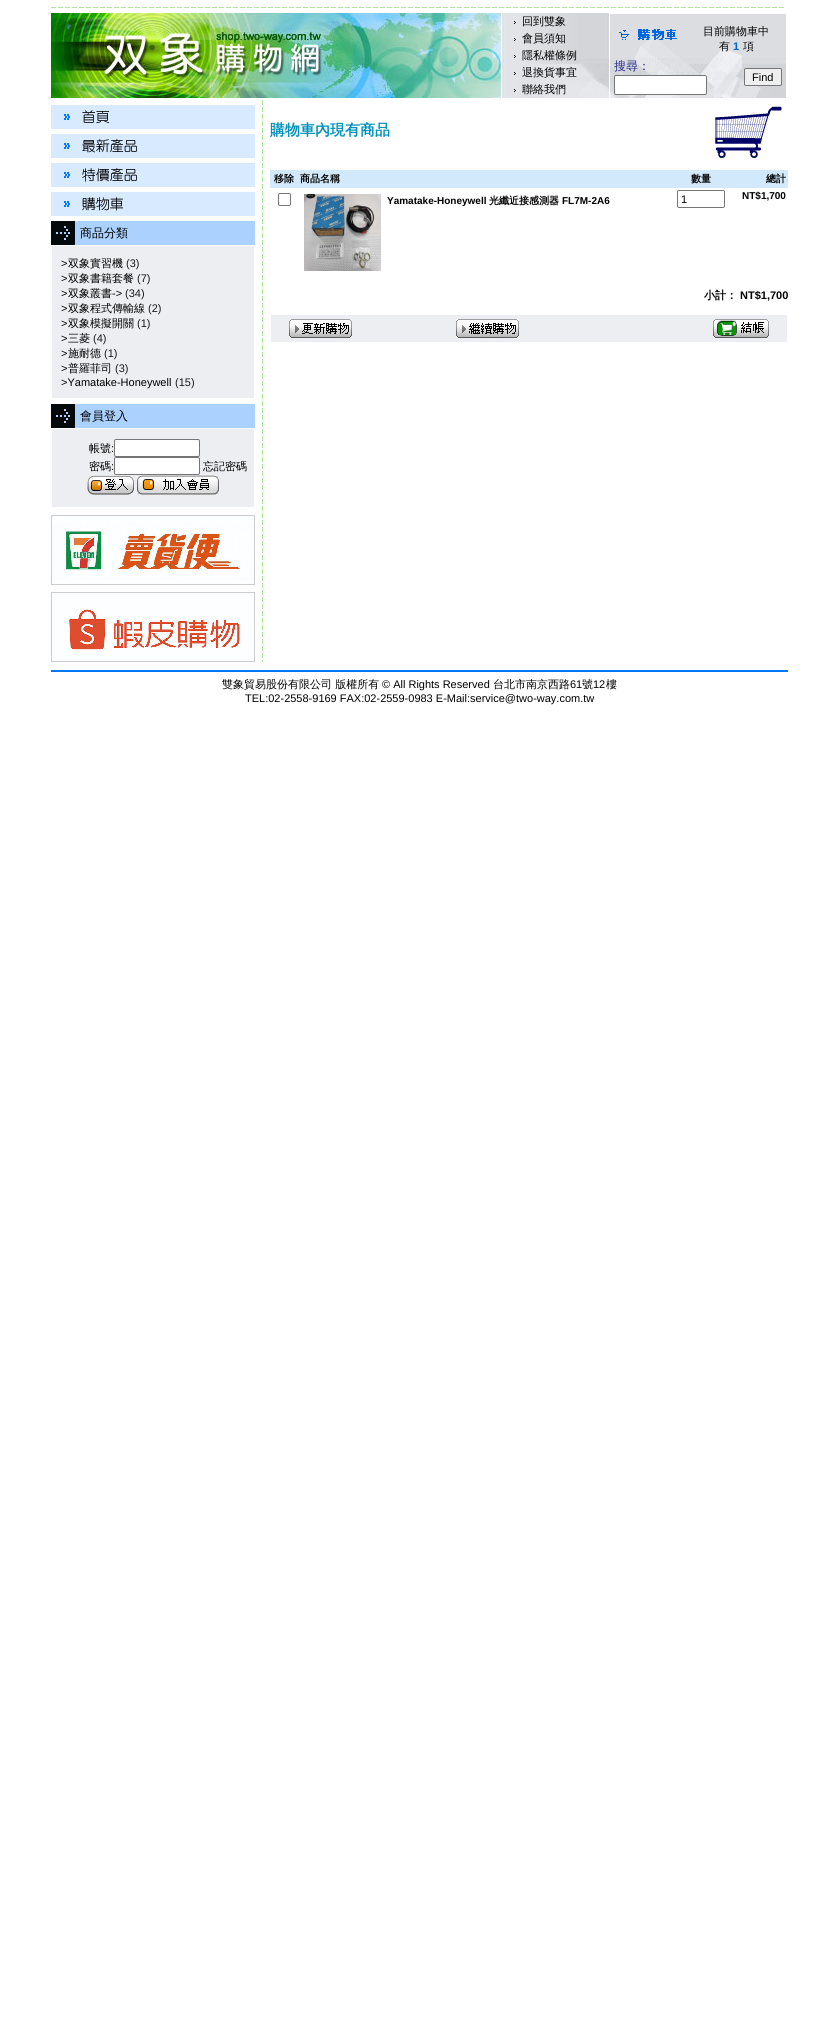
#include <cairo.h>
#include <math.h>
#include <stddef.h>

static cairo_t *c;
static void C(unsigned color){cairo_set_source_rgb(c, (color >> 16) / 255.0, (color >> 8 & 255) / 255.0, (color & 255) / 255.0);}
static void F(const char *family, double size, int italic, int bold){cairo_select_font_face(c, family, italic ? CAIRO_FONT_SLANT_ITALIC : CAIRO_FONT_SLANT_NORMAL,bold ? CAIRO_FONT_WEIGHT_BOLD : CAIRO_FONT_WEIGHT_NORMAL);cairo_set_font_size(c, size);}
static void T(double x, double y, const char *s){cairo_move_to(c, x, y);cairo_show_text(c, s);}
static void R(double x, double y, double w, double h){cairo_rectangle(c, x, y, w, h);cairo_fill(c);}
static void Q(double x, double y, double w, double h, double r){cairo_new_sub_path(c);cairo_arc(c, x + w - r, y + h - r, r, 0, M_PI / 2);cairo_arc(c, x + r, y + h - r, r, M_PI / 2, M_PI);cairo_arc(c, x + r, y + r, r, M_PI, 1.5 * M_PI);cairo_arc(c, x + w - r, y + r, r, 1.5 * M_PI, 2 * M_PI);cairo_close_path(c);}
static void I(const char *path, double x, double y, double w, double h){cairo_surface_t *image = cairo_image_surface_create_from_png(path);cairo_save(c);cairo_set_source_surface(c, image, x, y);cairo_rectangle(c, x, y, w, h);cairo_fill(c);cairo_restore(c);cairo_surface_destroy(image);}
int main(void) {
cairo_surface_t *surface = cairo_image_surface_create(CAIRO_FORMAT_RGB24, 839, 2023);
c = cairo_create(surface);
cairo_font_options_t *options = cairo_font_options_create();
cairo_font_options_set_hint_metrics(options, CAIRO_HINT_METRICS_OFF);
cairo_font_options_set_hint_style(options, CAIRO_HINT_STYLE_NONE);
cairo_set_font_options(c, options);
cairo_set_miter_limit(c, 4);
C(0xffffff);
cairo_paint(c);
I("1.png",51,7,733,1);
I("2.png",51,13,450,85);
I("3.png",502,13,108,85);
I("4.png",514,21,2,3);
F("WenQuanYi Zen Hei Medium",11,0,0);
C(0x000000);
T(522,25,"回到雙象");
I("4.png",514,38,2,3);
T(522,42,"會員須知");
I("4.png",514,55,2,3);
T(522,59,"隱私權條例");
I("4.png",514,72,2,3);
T(522,76,"退換貨事宜");
I("4.png",514,89,2,3);
T(522,93,"聯絡我們");
I("5.png",610,14,176,42);
T(703,35,"目前購物車中");
T(719,50,"有");
F("Liberation Sans",11,0,1);
C(0x0066cc);
T(733,50,"1");
F("WenQuanYi Zen Hei Medium",11,0,0);
C(0x000000);
T(743,50,"項");
I("6.png",610,56,176,42);
F("WenQuanYi Zen Hei Medium",12,0,0);
C(0x252c89);
T(614,70,"搜尋：");
C(0xffffff);
Q(614.5,75.5,92,19,1.5);
cairo_fill_preserve(c);
C(0x767676);
cairo_set_line_width(c,1);
cairo_stroke(c);
C(0xefefef);
Q(744.5,68.5,37,17,1.5);
cairo_fill_preserve(c);
C(0x767676);
cairo_stroke(c);
F("Liberation Sans",11,0,0);
C(0x000000);
T(752,81,"Find");
I("7.png",51,105,204,24);
I("8.png",51,134,204,24);
I("9.png",51,163,204,24);
I("10.png",51,192,204,24);
I("11.png",51,221,204,24);
F("WenQuanYi Zen Hei Medium",12,0,0);
T(80,237,"商品分類");
C(0xedeef2);
R(52,246,202,152);
F("Liberation Sans",11,0,0);
C(0x000000);
T(61,267,">");
F("WenQuanYi Zen Hei Medium",11,0,0);
T(68,267,"双象實習機");
F("Liberation Sans",11,0,0);
C(0x17191d);
T(126,267,"(3)");
C(0x000000);
T(61,282,">");
F("WenQuanYi Zen Hei Medium",11,0,0);
T(68,282,"双象書籍套餐");
F("Liberation Sans",11,0,0);
C(0x17191d);
T(137,282,"(7)");
C(0x000000);
T(61,297,">");
F("WenQuanYi Zen Hei Medium",11,0,0);
T(68,297,"双象叢書");
F("Liberation Sans",11,0,0);
T(112,297,"->");
C(0x17191d);
T(125,297,"(34)");
C(0x000000);
T(61,312,">");
F("WenQuanYi Zen Hei Medium",11,0,0);
T(68,312,"双象程式傳輸線");
F("Liberation Sans",11,0,0);
C(0x17191d);
T(148,312,"(2)");
C(0x000000);
T(61,327,">");
F("WenQuanYi Zen Hei Medium",11,0,0);
T(68,327,"双象模擬開關");
F("Liberation Sans",11,0,0);
C(0x17191d);
T(137,327,"(1)");
C(0x000000);
T(61,342,">");
F("WenQuanYi Zen Hei Medium",11,0,0);
T(68,342,"三菱");
F("Liberation Sans",11,0,0);
C(0x17191d);
T(93,342,"(4)");
C(0x000000);
T(61,357,">");
F("WenQuanYi Zen Hei Medium",11,0,0);
T(68,357,"施耐德");
F("Liberation Sans",11,0,0);
C(0x17191d);
T(104,357,"(1)");
C(0x000000);
T(61,372,">");
F("WenQuanYi Zen Hei Medium",11,0,0);
T(68,372,"普羅菲司");
F("Liberation Sans",11,0,0);
C(0x17191d);
T(115,372,"(3)");
C(0x000000);
T(61,386,">Yamatake-Honeywell");
C(0x17191d);
T(175,386,"(15)");
I("11.png",51,404,204,24);
F("WenQuanYi Zen Hei Medium",12,0,0);
C(0x000000);
T(80,420,"會員登入");
C(0xedeef2);
R(52,429,202,78);
F("WenQuanYi Zen Hei Medium",11,0,0);
C(0x000000);
T(89,452,"帳號");
F("Liberation Sans",11,0,0);
T(111,452,":");
C(0xffffff);
Q(114.5,439.5,85,17,1.5);
cairo_fill_preserve(c);
C(0x767676);
cairo_stroke(c);
F("WenQuanYi Zen Hei Medium",11,0,0);
C(0x000000);
T(89,470,"密碼");
F("Liberation Sans",11,0,0);
T(111,470,":");
C(0xffffff);
Q(114.5,457.5,85,17,1.5);
cairo_fill_preserve(c);
C(0x767676);
cairo_stroke(c);
F("WenQuanYi Zen Hei Medium",11,0,0);
C(0x000000);
T(203,470,"忘記密碼");
I("12.png",87,475,47,20);
I("13.png",137,475,82,20);
C(0xcccccc);
R(51,515,204,70);
I("14.png",52,516,202,68);
R(51,592,204,70);
I("15.png",52,593,202,68);
I("16.png",262,100,1,562);
I("17.png",262,378,1,10);
F("WenQuanYi Zen Hei",15,0,1);
C(0x0092ba);
T(270,135,"購物車內現有商品");
I("18.png",715,106,67,52);
C(0xd2e9fb);
R(270,170,518,18);
F("WenQuanYi Zen Hei",10,0,1);
C(0x000000);
T(274,182,"移除");
T(300,182,"商品名稱");
T(691,182,"數量");
T(766,182,"總計");
Q(278.5,193.5,12,12,1.5);
C(0x767676);
cairo_stroke(c);
I("19.png",304,194,77,77);
F("Liberation Sans",10,0,1);
C(0x000000);
T(387,204,"Yamatake-Honeywell");
F("WenQuanYi Zen Hei",10,0,1);
T(489,204,"光纖近接感測器");
F("Liberation Sans",10,0,1);
T(562,204,"FL7M-2A6");
Q(677.5,190.5,47,17,1.5);
C(0x767676);
cairo_stroke(c);
F("Liberation Sans",11,0,0);
C(0x000000);
T(681,203,"1");
F("Liberation Sans",10,0,1);
T(742,199,"NT$1,700");
F("WenQuanYi Zen Hei",11,0,1);
T(704,299,"小計：");
F("Liberation Sans",11,0,1);
T(740,299,"NT$1,700");
C(0xedeef2);
R(271,315,516,27);
I("20.png",289,319,63,19);
I("21.png",456,319,63,19);
I("22.png",713,319,56,19);
C(0x0078ff);
R(51,670,737,2);
F("WenQuanYi Zen Hei Medium",11,0,0);
C(0x000000);
T(222,688,"雙象貿易股份有限公司 版權所有");
F("Liberation Sans",11,0,0);
T(382,688,"© All Rights Reserved");
F("WenQuanYi Zen Hei Medium",11,0,0);
T(493,688,"台北市南京西路");
F("Liberation Sans",11,0,0);
T(570,688,"61");
F("WenQuanYi Zen Hei Medium",11,0,0);
T(582,688,"號");
F("Liberation Sans",11,0,0);
T(593,688,"12");
F("WenQuanYi Zen Hei Medium",11,0,0);
T(606,688,"樓");
F("Liberation Sans",11,0,0);
T(245,702,"TEL:02-2558-9169 FAX:02-2559-0983 E-Mail:service@two-way.com.tw");
cairo_surface_write_to_png(surface, "o.png");
cairo_font_options_destroy(options);
cairo_destroy(c);
cairo_surface_destroy(surface);
return 0;
}
